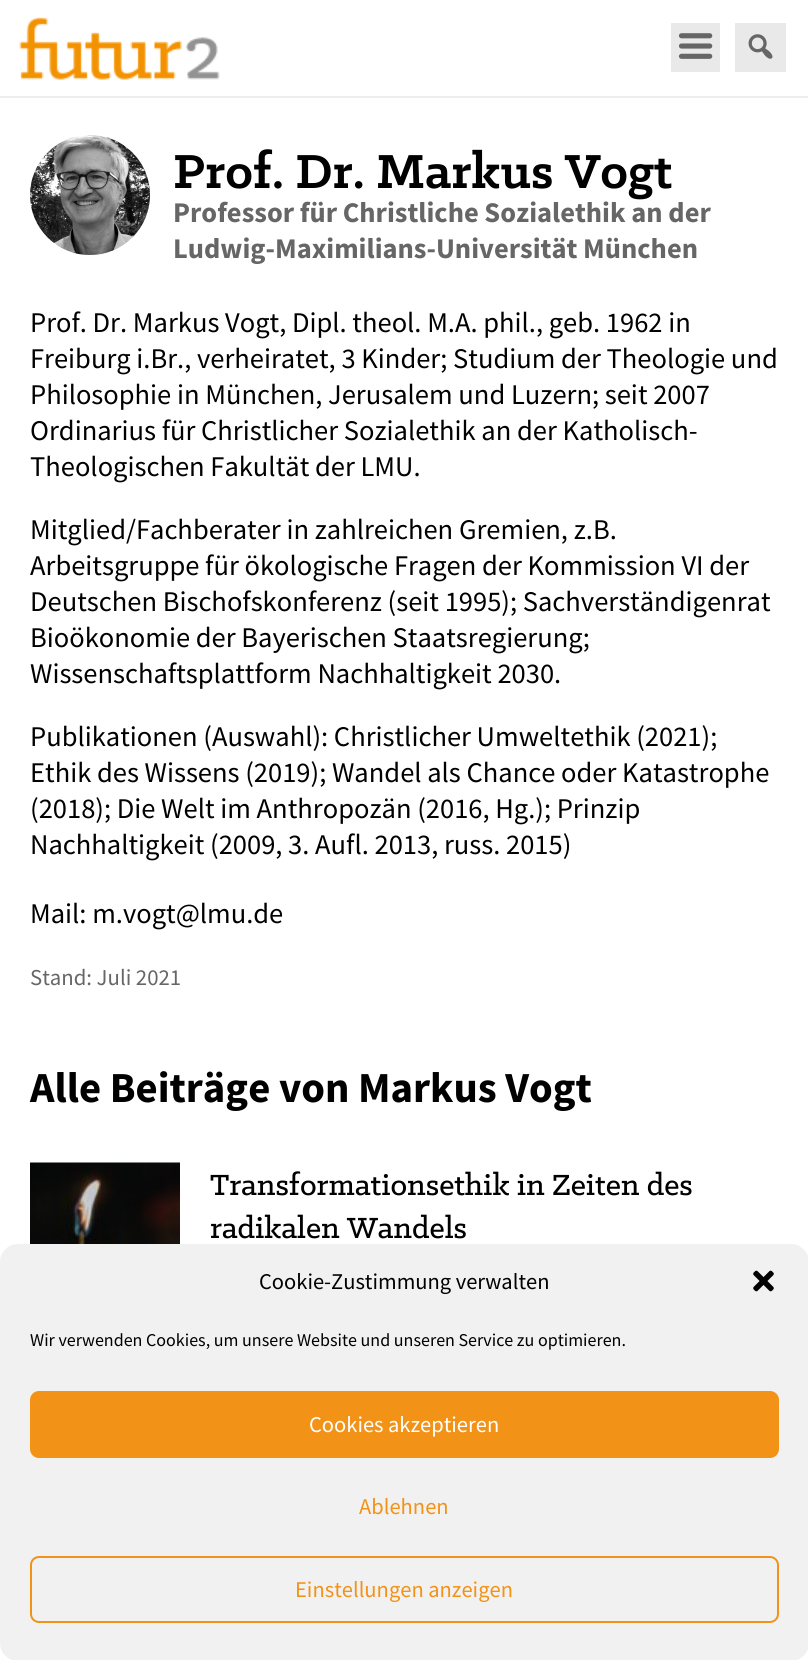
#include <cairo.h>
#include <math.h>
#include <stddef.h>

static cairo_t *c;
static void C(unsigned color){cairo_set_source_rgb(c, (color >> 16) / 255.0, (color >> 8 & 255) / 255.0, (color & 255) / 255.0);}
static void F(const char *family, double size, int italic, int bold){cairo_select_font_face(c, family, italic ? CAIRO_FONT_SLANT_ITALIC : CAIRO_FONT_SLANT_NORMAL,bold ? CAIRO_FONT_WEIGHT_BOLD : CAIRO_FONT_WEIGHT_NORMAL);cairo_set_font_size(c, size);}
static void T(double x, double y, const char *s){cairo_move_to(c, x, y);cairo_show_text(c, s);}
static void R(double x, double y, double w, double h){cairo_rectangle(c, x, y, w, h);cairo_fill(c);}
static void Q(double x, double y, double w, double h, double r){cairo_new_sub_path(c);cairo_arc(c, x + w - r, y + h - r, r, 0, M_PI / 2);cairo_arc(c, x + r, y + h - r, r, M_PI / 2, M_PI);cairo_arc(c, x + r, y + r, r, M_PI, 1.5 * M_PI);cairo_arc(c, x + w - r, y + r, r, 1.5 * M_PI, 2 * M_PI);cairo_close_path(c);}
static void I(const char *path, double x, double y, double w, double h){cairo_surface_t *image = cairo_image_surface_create_from_png(path);cairo_save(c);cairo_set_source_surface(c, image, x, y);cairo_rectangle(c, x, y, w, h);cairo_fill(c);cairo_restore(c);cairo_surface_destroy(image);}
int main(void) {
cairo_surface_t *surface = cairo_image_surface_create(CAIRO_FORMAT_RGB24, 808, 1660);
c = cairo_create(surface);
cairo_font_options_t *options = cairo_font_options_create();
cairo_font_options_set_hint_metrics(options, CAIRO_HINT_METRICS_OFF);
cairo_font_options_set_hint_style(options, CAIRO_HINT_STYLE_NONE);
cairo_set_font_options(c, options);
cairo_set_miter_limit(c, 4);
C(0xffffff);
cairo_paint(c);
C(0xeeeeee);
R(0,96,808,2);
I("1.png",19,17,201,63);
C(0xe9e9e9);
R(671,23,49,49);
I("2.png",678,33,35,26);
R(735,23,51,49);
I("3.png",748,34,25,25);
I("4.png",30,135,120,120);
F("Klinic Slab",54,0,1);
C(0x000000);
T(173,188,"Prof. Dr. Markus Vogt");
F("Source Sans Pro",28.5,0,1);
C(0x666666);
T(173,222,"Professor für Christliche Sozialethik an der");
T(173,258,"Ludwig-Maximilians-Universität München");
F("Source Sans Pro",28.5,0,0);
C(0x000000);
T(30,332,"Prof. Dr. Markus Vogt, Dipl. theol. M.A. phil., geb. 1962 in");
T(30,368,"Freiburg i.Br., verheiratet, 3 Kinder; Studium der Theologie und");
T(30,404,"Philosophie in München, Jerusalem und Luzern; seit 2007");
T(30,440,"Ordinarius für Christlicher Sozialethik an der Katholisch-");
T(30,476,"Theologischen Fakultät der LMU.");
T(30,539,"Mitglied/Fachberater in zahlreichen Gremien, z.B.");
T(30,575,"Arbeitsgruppe für ökologische Fragen der Kommission VI der");
T(30,611,"Deutschen Bischofskonferenz (seit 1995); Sachverständigenrat");
T(30,647,"Bioökonomie der Bayerischen Staatsregierung;");
T(30,683,"Wissenschaftsplattform Nachhaltigkeit 2030.");
T(30,746,"Publikationen (Auswahl): Christlicher Umweltethik (2021);");
T(30,782,"Ethik des Wissens (2019); Wandel als Chance oder Katastrophe");
T(30,818,"(2018); Die Welt im Anthropozän (2016, Hg.); Prinzip");
T(30,854,"Nachhaltigkeit (2009, 3. Aufl. 2013, russ. 2015)");
T(30,923,"Mail: m.vogt@lmu.de");
F("Source Sans Pro",22.75,0,0);
C(0x666666);
T(30,985,"Stand: Juli 2021");
F("Source Sans Pro",42.75,0,1);
C(0x000000);
T(30,1102,"Alle Beiträge von Markus Vogt");
I("5.png",30,1162,150,82);
F("Klinic Slab Medium",33,0,0);
T(210,1195,"Transformationsethik in Zeiten des");
T(210,1238,"radikalen Wandels");
C(0xf1f1f1);
Q(0,1244,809,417,18);
cairo_fill(c);
F("Source Sans Pro",22.5,0,0);
C(0x000000);
T(259,1289,"Cookie-Zustimmung verwalten");
I("6.png",753,1270,21,22);
F("Source Sans Pro",18,0,0);
T(30,1346,"Wir verwenden Cookies, um unsere Website und unseren Service zu optimieren.");
C(0xf29217);
Q(31,1392,747,65,8);
cairo_fill_preserve(c);
cairo_stroke(c);
F("Source Sans Pro",22.5,0,0);
C(0xffffff);
T(309,1432,"Cookies akzeptieren");
C(0xf29217);
T(359,1514,"Ablehnen");
Q(31,1557,747,65,8);
cairo_stroke(c);
T(295,1597,"Einstellungen anzeigen");
cairo_surface_write_to_png(surface, "o.png");
cairo_font_options_destroy(options);
cairo_destroy(c);
cairo_surface_destroy(surface);
return 0;
}
